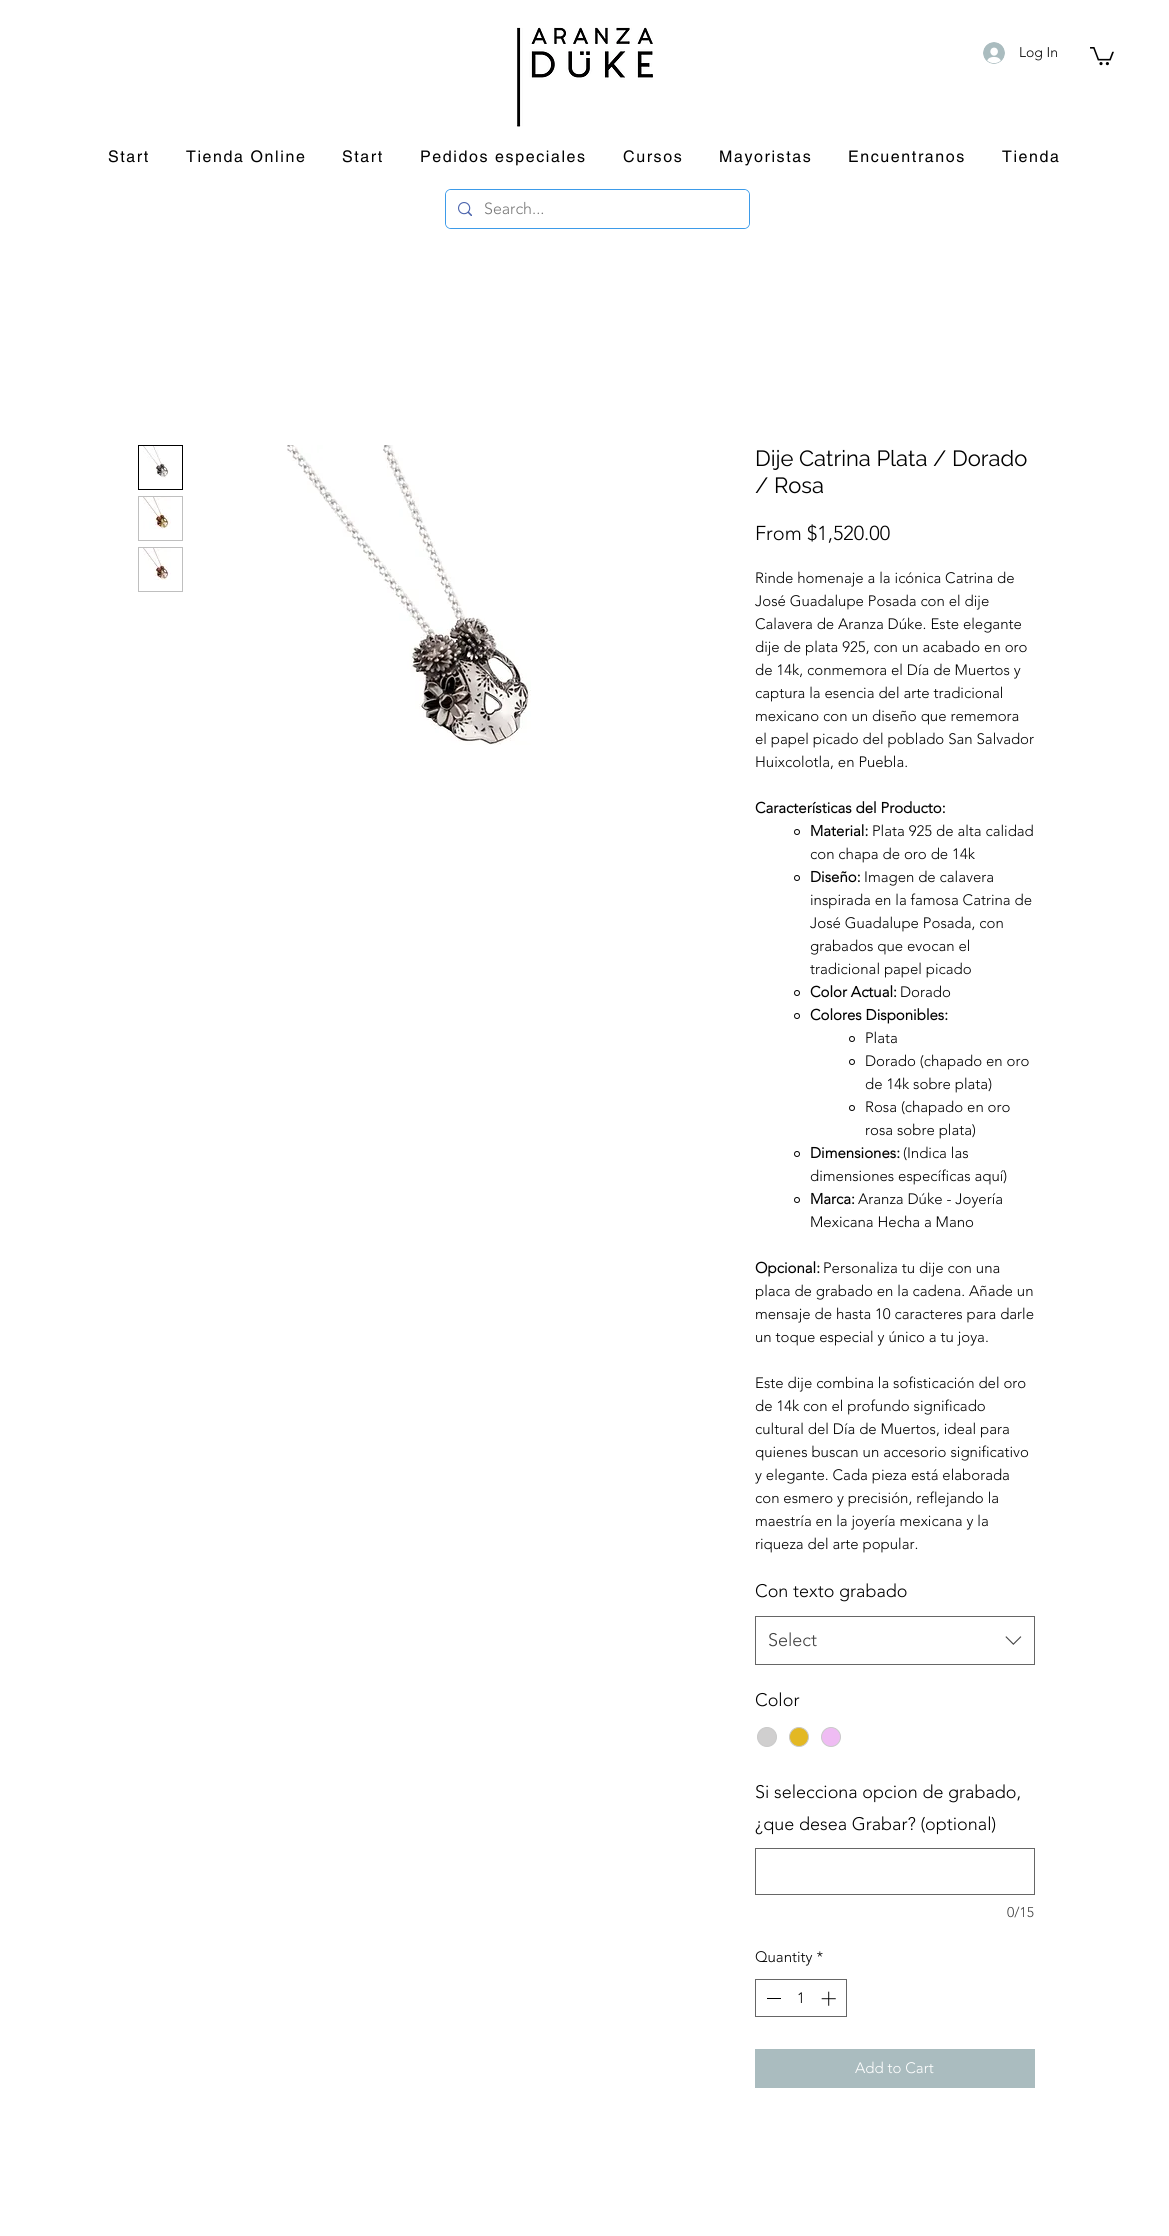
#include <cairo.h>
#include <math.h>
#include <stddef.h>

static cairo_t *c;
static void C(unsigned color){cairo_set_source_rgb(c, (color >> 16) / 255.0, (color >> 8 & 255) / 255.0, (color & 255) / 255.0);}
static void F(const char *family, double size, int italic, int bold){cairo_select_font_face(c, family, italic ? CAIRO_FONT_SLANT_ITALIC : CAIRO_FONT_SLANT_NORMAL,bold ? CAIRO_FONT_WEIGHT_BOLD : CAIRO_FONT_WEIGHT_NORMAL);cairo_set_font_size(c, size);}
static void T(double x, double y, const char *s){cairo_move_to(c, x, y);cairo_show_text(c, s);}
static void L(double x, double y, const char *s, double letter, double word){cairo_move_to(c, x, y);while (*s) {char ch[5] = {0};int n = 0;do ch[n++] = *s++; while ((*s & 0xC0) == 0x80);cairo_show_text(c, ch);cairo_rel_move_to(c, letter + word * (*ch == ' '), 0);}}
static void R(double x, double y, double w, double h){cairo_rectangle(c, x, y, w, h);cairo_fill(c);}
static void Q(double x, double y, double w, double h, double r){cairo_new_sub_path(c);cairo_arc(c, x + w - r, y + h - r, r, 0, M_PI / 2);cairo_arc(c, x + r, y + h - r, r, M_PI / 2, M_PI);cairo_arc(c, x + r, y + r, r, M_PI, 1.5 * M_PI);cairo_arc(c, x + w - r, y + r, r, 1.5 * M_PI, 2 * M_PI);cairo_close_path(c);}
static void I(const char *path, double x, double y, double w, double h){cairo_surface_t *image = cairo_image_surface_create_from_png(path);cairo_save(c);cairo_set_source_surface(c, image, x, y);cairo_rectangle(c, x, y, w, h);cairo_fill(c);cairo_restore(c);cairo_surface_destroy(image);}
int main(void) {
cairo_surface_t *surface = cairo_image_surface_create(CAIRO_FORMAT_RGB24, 1169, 2236);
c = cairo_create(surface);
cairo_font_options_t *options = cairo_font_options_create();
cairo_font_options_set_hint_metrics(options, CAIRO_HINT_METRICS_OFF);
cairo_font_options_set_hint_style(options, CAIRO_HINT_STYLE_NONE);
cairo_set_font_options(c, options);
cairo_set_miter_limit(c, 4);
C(0xffffff);
cairo_paint(c);
I("1.png",517,27,136,100);
I("2.png",983,42,22,22);
F("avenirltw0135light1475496 Light",14,0,0);
C(0x000000);
T(1019,57,"Log In");
I("3.png",1090,47,24,19);
F("helvetica",16,0,0);
L(108,162,"Start",1.6,0);
L(186,162,"Tienda Online",1.6,0);
L(342,162,"Start",1.6,0);
L(420,162,"Pedidos especiales",1.6,0);
L(623,162,"Cursos",1.6,0);
L(719,162,"Mayoristas",1.6,0);
L(848,162,"Encuentranos",1.6,0);
L(1002,162,"Tienda",1.6,0);
Q(445.5,189.5,304,39,5.5);
C(0x3d9be9);
cairo_set_line_width(c,1);
cairo_stroke(c);
C(0xffffff);
Q(446,190,303,38,5);
cairo_fill(c);
I("4.png",458,202,14,14);
F("avenirltw0135light1475496 Light",16,0,0);
C(0x787878);
T(484,214,"Search...");
cairo_rectangle(c,138.5,445.5,44,44);
C(0x000000);
cairo_stroke(c);
I("5.png",143,446,27,32);
cairo_rectangle(c,138.5,496.5,44,44);
C(0xbfbfbf);
cairo_stroke(c);
I("6.png",143,497,28,32);
cairo_rectangle(c,138.5,547.5,44,44);
cairo_stroke(c);
I("7.png",143,548,28,32);
I("8.png",287,445,244,300);
F("Raleway",22,0,0);
C(0x000000);
T(755,466,"Dije Catrina Plata / Dorado");
T(755,493,"/ Rosa");
F("avenirltw0135light1475496 Light",20,0,0);
T(755,540,"From $1,520.00");
F("avenirltw0135light1475496 Light",15,0,0);
T(755,583,"Rinde homenaje a la icónica Catrina de");
T(755,606,"José Guadalupe Posada con el dije");
T(755,629,"Calavera de Aranza Dúke. Este elegante");
T(755,652,"dije de plata 925, con un acabado en oro");
T(755,675,"de 14k, conmemora el Día de Muertos y");
T(755,698,"captura la esencia del arte tradicional");
T(755,721,"mexicano con un diseño que rememora");
T(755,744,"el papel picado del poblado San Salvador");
T(755,767,"Huixcolotla, en Puebla.");
F("avenirltw0135light1475496",15,0,1);
T(755,813,"Características del Producto:");
cairo_new_path(c);
cairo_arc(c,797,832,2.5,0,2 * M_PI);
cairo_stroke(c);
T(810,836,"Material:");
F("avenirltw0135light1475496 Light",15,0,0);
T(872,836,"Plata 925 de alta calidad");
T(810,859,"con chapa de oro de 14k");
cairo_new_path(c);
cairo_arc(c,797,878,2.5,0,2 * M_PI);
cairo_stroke(c);
F("avenirltw0135light1475496",15,0,1);
T(810,882,"Diseño:");
F("avenirltw0135light1475496 Light",15,0,0);
T(864,882,"Imagen de calavera");
T(810,905,"inspirada en la famosa Catrina de");
T(810,928,"José Guadalupe Posada, con");
T(810,951,"grabados que evocan el");
T(810,974,"tradicional papel picado");
cairo_new_path(c);
cairo_arc(c,797,993,2.5,0,2 * M_PI);
cairo_stroke(c);
F("avenirltw0135light1475496",15,0,1);
T(810,997,"Color Actual:");
F("avenirltw0135light1475496 Light",15,0,0);
T(900,997,"Dorado");
cairo_new_path(c);
cairo_arc(c,797,1016,2.5,0,2 * M_PI);
cairo_stroke(c);
F("avenirltw0135light1475496",15,0,1);
T(810,1020,"Colores Disponibles:");
cairo_new_path(c);
cairo_arc(c,852,1039,2.5,0,2 * M_PI);
cairo_stroke(c);
F("avenirltw0135light1475496 Light",15,0,0);
T(865,1043,"Plata");
cairo_new_path(c);
cairo_arc(c,852,1062,2.5,0,2 * M_PI);
cairo_stroke(c);
T(865,1066,"Dorado (chapado en oro");
T(865,1089,"de 14k sobre plata)");
cairo_new_path(c);
cairo_arc(c,852,1108,2.5,0,2 * M_PI);
cairo_stroke(c);
T(865,1112,"Rosa (chapado en oro");
T(865,1135,"rosa sobre plata)");
cairo_new_path(c);
cairo_arc(c,797,1154,2.5,0,2 * M_PI);
cairo_stroke(c);
F("avenirltw0135light1475496",15,0,1);
T(810,1158,"Dimensiones:");
F("avenirltw0135light1475496 Light",15,0,0);
T(903,1158,"(Indica las");
T(810,1181,"dimensiones específicas aquí)");
cairo_new_path(c);
cairo_arc(c,797,1200,2.5,0,2 * M_PI);
cairo_stroke(c);
F("avenirltw0135light1475496",15,0,1);
T(810,1204,"Marca:");
F("avenirltw0135light1475496 Light",15,0,0);
T(858,1204,"Aranza Dúke - Joyería");
T(810,1227,"Mexicana Hecha a Mano");
F("avenirltw0135light1475496",15,0,1);
T(755,1273,"Opcional:");
F("avenirltw0135light1475496 Light",15,0,0);
T(823,1273,"Personaliza tu dije con una");
T(755,1296,"placa de grabado en la cadena. Añade un");
T(755,1319,"mensaje de hasta 10 caracteres para darle");
T(755,1342,"un toque especial y único a tu joya.");
T(755,1388,"Este dije combina la sofisticación del oro");
T(755,1411,"de 14k con el profundo significado");
T(755,1434,"cultural del Día de Muertos, ideal para");
T(755,1457,"quienes buscan un accesorio significativo");
T(755,1480,"y elegante. Cada pieza está elaborada");
T(755,1503,"con esmero y precisión, reflejando la");
T(755,1526,"maestría en la joyería mexicana y la");
T(755,1549,"riqueza del arte popular.");
F("avenirltw0135light1475496 Light",18,0,0);
T(755,1597,"Con texto grabado");
cairo_rectangle(c,755.5,1616.5,279,48);
C(0x666666);
cairo_stroke(c);
C(0x404040);
T(768,1646,"Select");
I("9.png",1005,1636,17,9);
C(0x000000);
T(755,1706,"Color");
C(0xd0cfcf);
cairo_new_path(c);
cairo_arc(c,767,1737,9.5,0,2 * M_PI);
cairo_fill_preserve(c);
C(0xc9c9c9);
cairo_stroke(c);
C(0xe3b823);
cairo_arc(c,799,1737,9.5,0,2 * M_PI);
cairo_fill_preserve(c);
C(0xc9c9c9);
cairo_stroke(c);
C(0xefbcf3);
cairo_arc(c,831,1737,9.5,0,2 * M_PI);
cairo_fill_preserve(c);
C(0xc9c9c9);
cairo_stroke(c);
C(0x000000);
T(755,1798,"Si selecciona opcion de grabado,");
T(755,1830,"¿que desea Grabar? (optional)");
cairo_rectangle(c,755.5,1848.5,279,46);
C(0x666666);
cairo_stroke(c);
F("avenirltw0135light1475496 Light",14,0,0);
C(0x404040);
T(1007,1917,"0/15");
F("avenirltw0135light1475496 Light",15,0,0);
C(0x000000);
T(755,1962,"Quantity *");
cairo_rectangle(c,755.5,1979.5,91,37);
C(0x666666);
cairo_stroke(c);
C(0x000000);
R(767,1998,14,1);
T(797,2003,"1");
I("10.png",821,1991,15,15);
C(0xaabcbf);
R(755,2049,280,39);
C(0xffffff);
T(855,2073,"Add to Cart");
cairo_surface_write_to_png(surface, "o.png");
cairo_font_options_destroy(options);
cairo_destroy(c);
cairo_surface_destroy(surface);
return 0;
}
